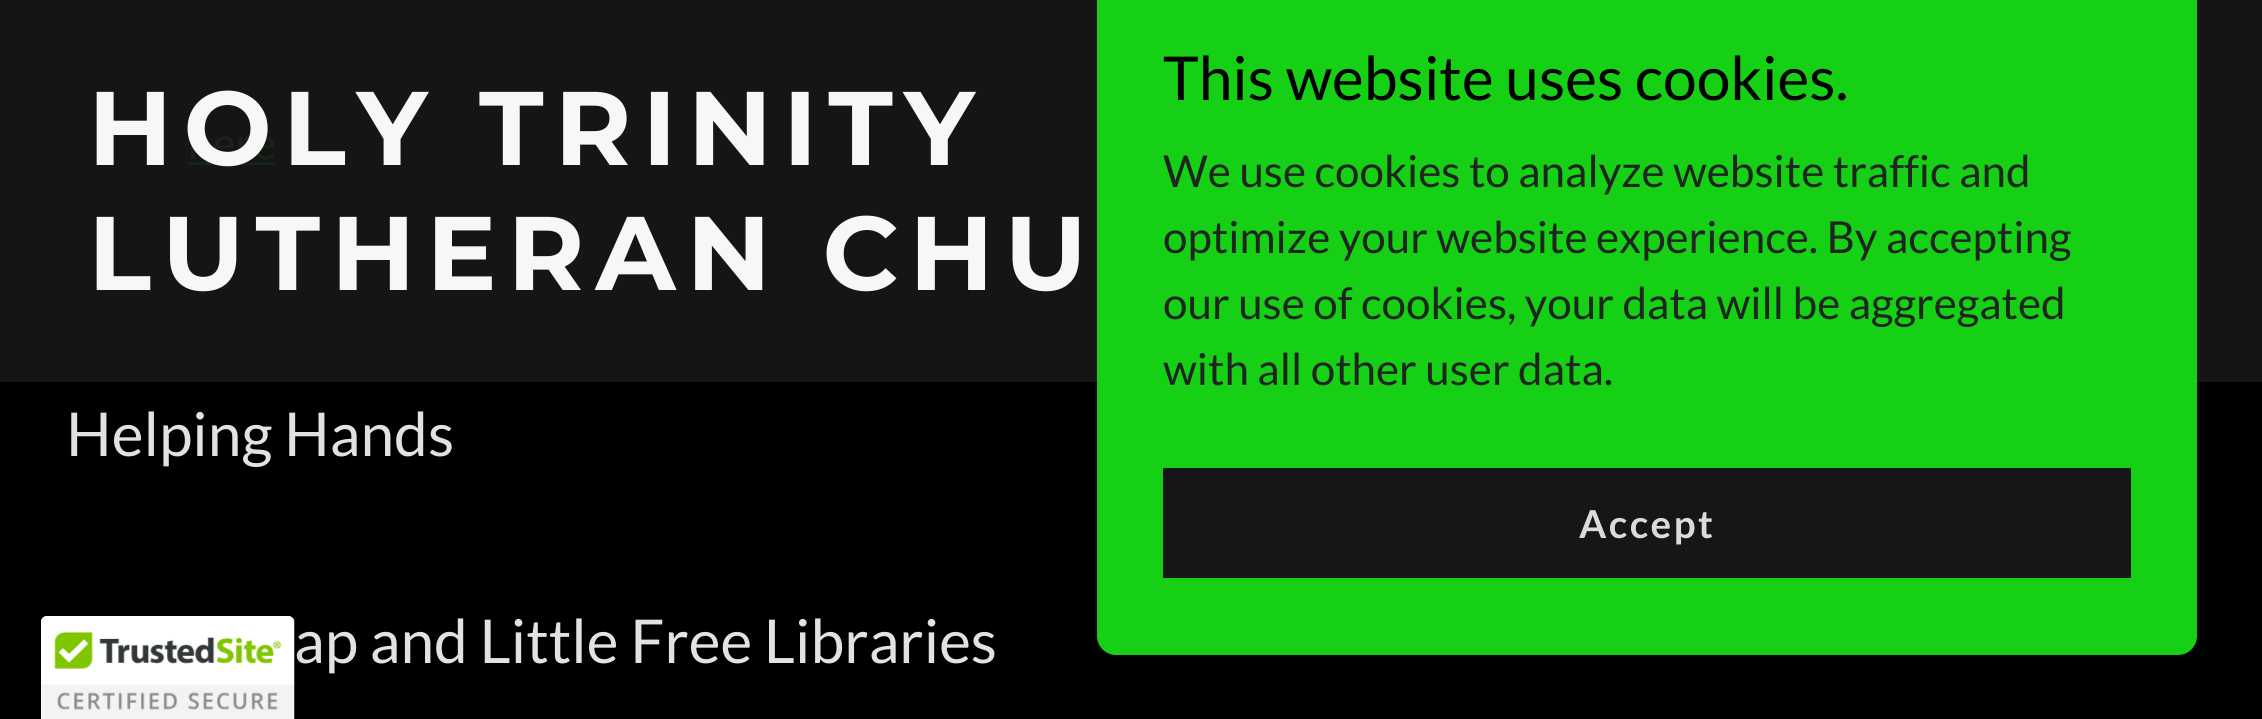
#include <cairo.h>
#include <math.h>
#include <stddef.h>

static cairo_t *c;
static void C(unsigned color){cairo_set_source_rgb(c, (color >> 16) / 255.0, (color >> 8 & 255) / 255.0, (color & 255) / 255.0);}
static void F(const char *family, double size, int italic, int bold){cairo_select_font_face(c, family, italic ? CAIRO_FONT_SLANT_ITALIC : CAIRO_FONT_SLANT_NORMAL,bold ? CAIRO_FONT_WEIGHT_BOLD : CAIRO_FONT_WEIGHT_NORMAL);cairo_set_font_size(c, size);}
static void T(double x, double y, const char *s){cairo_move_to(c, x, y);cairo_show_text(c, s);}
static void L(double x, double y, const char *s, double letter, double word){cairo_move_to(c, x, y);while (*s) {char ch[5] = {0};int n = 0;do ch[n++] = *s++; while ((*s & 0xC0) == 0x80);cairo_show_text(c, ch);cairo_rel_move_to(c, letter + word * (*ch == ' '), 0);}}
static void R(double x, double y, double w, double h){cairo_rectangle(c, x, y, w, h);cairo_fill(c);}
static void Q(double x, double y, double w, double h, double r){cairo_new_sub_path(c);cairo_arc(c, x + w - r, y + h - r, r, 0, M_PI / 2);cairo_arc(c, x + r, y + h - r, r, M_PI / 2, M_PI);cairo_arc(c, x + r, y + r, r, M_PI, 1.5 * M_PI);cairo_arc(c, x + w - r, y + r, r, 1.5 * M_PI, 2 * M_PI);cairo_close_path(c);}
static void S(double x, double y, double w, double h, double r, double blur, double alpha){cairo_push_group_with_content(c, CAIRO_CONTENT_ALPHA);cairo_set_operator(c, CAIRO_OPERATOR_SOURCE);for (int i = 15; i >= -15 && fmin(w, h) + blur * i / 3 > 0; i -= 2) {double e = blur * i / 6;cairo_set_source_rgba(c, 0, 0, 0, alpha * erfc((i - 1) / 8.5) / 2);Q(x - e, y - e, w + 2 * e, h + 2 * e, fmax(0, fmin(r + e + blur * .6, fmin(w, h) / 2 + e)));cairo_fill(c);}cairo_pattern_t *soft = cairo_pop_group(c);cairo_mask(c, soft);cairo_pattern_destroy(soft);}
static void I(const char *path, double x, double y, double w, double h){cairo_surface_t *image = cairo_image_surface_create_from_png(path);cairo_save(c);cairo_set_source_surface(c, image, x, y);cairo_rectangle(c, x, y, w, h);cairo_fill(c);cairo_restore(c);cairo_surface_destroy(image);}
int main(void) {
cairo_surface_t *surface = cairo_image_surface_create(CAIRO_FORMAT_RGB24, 2262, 719);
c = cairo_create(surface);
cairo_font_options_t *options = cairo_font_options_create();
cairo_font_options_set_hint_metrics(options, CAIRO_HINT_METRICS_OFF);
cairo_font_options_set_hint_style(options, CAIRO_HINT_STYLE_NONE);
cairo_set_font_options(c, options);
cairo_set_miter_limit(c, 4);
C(0x000000);
cairo_paint(c);
C(0x151515);
R(0,0,2262,382);
F("Lato",44,0,0);
C(0x162516);
T(188,159,"here");
R(187,162,88,3);
F("Montserrat",104.5,0,1);
C(0xf7f7f7);
L(88,165,"HOLY TRINITY",11,0);
L(88,290,"LUTHERAN CHU",11,0);
C(0x16d016);
Q(1097,-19,1100,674,19);
cairo_fill(c);
F("Lato",60.5,0,0);
C(0x000000);
T(1163,100,"This website uses cookies.");
F("Lato",44,0,0);
C(0x1e241e);
T(1163,187,"We use cookies to analyze website traffic and");
T(1163,253,"optimize your website experience. By accepting");
T(1163,319,"our use of cookies, your data will be aggregated");
T(1163,385,"with all other user data.");
C(0x161616);
R(1163,468,968,110);
F("Lato",38.5,0,1);
C(0xdbdbdb);
L(1579,538,"Accept",2.5,0);
F("Lato",60.5,0,0);
C(0xe2e2e2);
T(66,456,"Helping Hands");
T(294,663,"ap and Little Free Libraries");
C(0x000000);
S(41,616,253,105,6,7,.2);
C(0xffffff);
cairo_new_path(c);
cairo_move_to(c,47,616);
cairo_line_to(c,288,616);
cairo_curve_to(c,291.5,616,294,618.5,294,622);
cairo_line_to(c,294,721);
cairo_line_to(c,41,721);
cairo_line_to(c,41,622);
cairo_curve_to(c,41,618.5,43.5,616,47,616);
cairo_close_path(c);
cairo_fill(c);
I("1.png",41,616,254,103);
cairo_surface_write_to_png(surface, "o.png");
cairo_font_options_destroy(options);
cairo_destroy(c);
cairo_surface_destroy(surface);
return 0;
}
